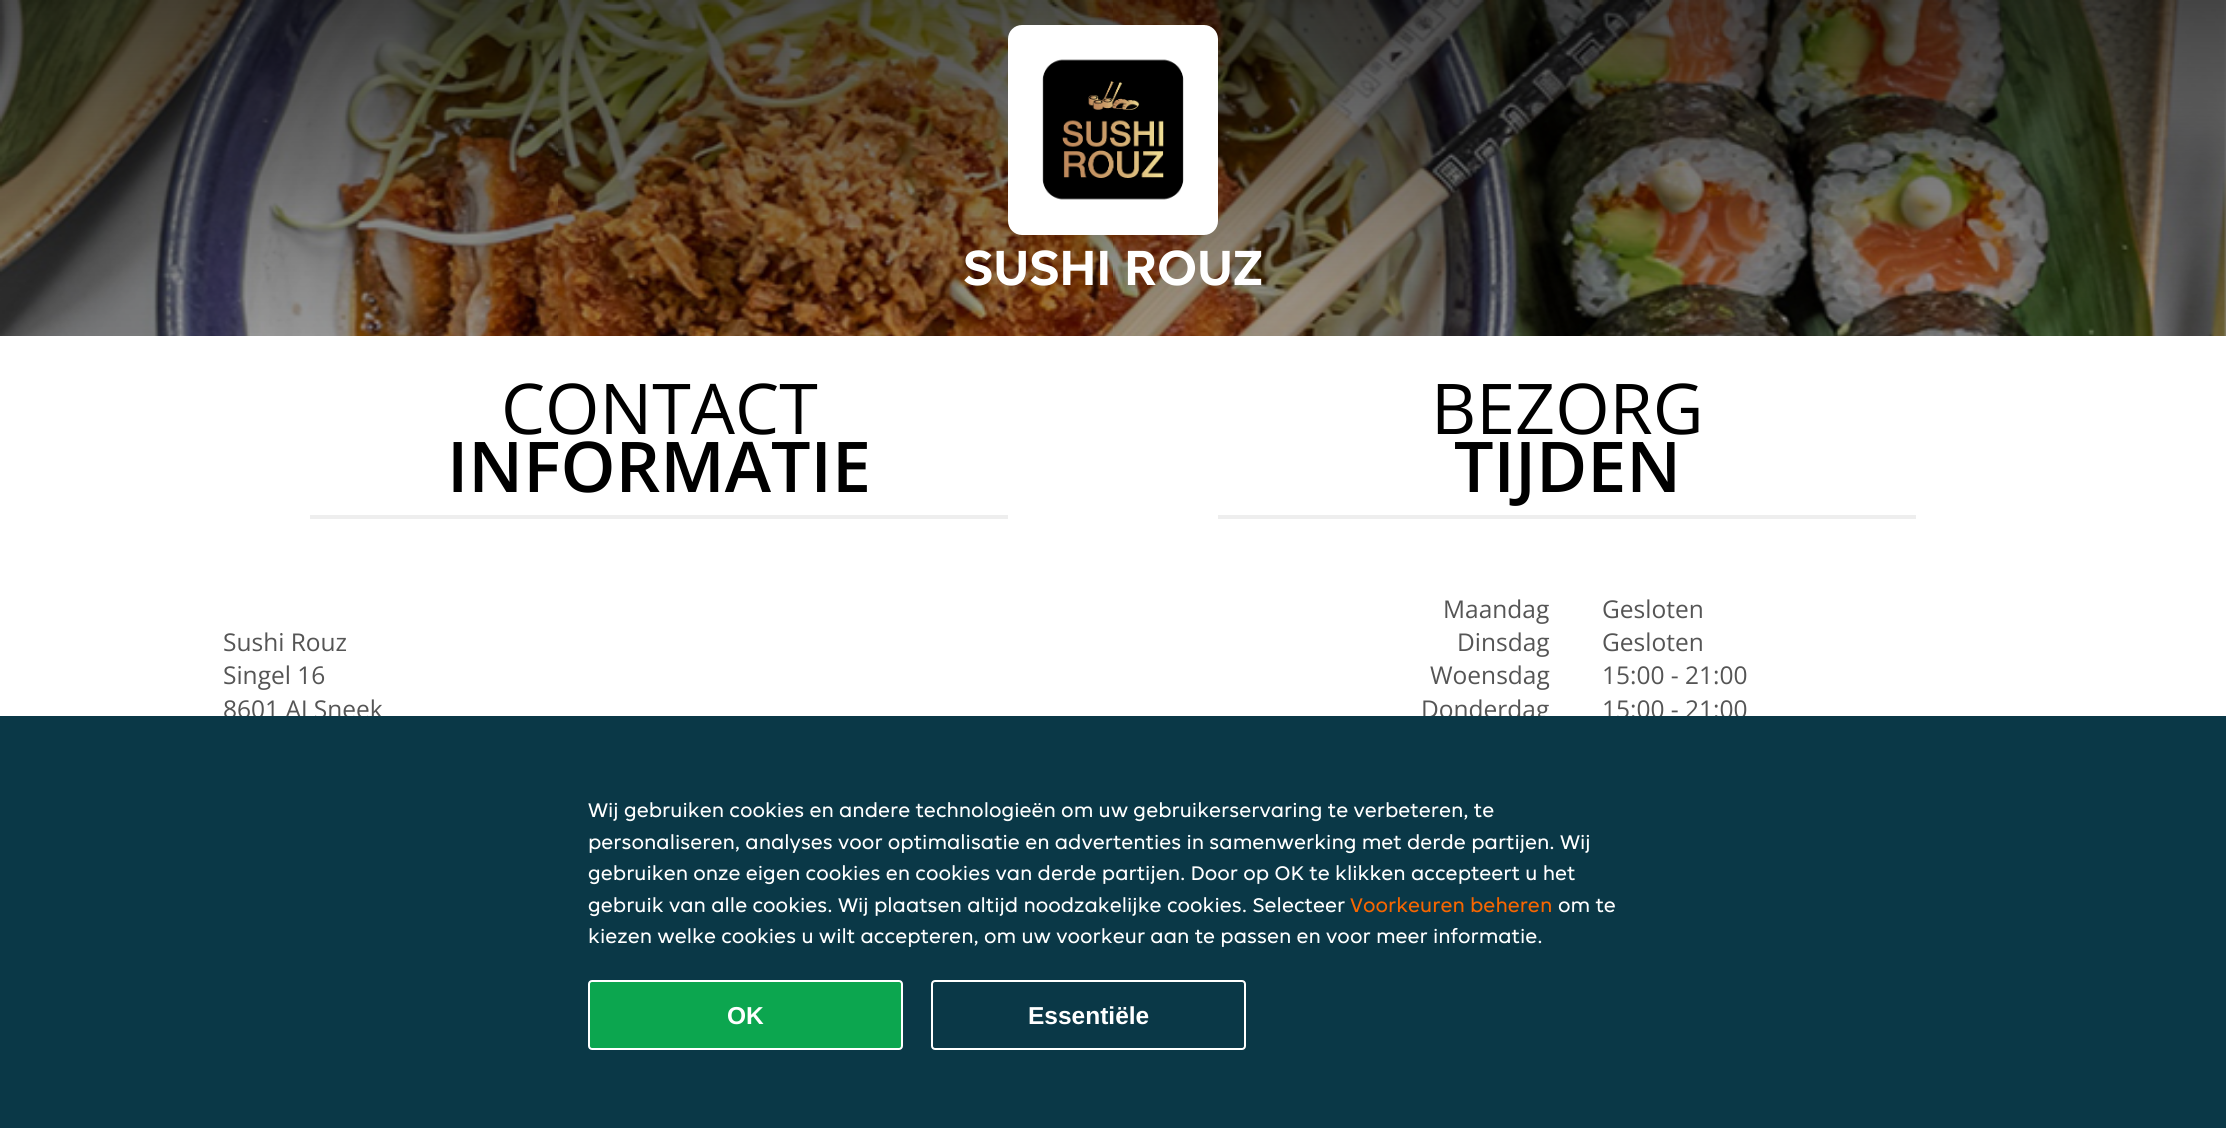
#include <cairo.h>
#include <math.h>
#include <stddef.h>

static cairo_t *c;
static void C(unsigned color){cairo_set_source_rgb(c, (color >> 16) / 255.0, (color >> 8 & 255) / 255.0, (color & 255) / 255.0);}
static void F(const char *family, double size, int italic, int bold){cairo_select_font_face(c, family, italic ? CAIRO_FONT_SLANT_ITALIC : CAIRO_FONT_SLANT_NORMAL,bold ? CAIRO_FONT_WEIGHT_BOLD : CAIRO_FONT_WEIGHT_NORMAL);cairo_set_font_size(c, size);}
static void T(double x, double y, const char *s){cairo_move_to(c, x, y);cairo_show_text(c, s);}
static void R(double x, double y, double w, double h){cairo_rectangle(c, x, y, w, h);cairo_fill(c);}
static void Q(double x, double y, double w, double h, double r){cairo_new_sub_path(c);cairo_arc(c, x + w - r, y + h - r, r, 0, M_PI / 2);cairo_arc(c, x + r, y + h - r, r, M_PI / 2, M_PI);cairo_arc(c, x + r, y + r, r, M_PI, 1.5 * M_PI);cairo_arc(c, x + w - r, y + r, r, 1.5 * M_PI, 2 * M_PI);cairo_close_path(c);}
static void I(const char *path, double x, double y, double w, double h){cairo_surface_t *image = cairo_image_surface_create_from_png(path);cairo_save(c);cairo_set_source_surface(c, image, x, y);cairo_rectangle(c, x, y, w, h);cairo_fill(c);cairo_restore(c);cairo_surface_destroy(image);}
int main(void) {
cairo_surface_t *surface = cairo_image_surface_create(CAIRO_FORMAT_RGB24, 2226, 1128);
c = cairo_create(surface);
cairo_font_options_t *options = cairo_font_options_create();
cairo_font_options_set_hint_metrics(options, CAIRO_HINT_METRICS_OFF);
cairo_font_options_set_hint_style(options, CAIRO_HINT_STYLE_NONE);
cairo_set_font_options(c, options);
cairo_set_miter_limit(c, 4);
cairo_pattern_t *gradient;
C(0xffffff);
cairo_paint(c);
I("1.png",0,0,2226,336);
gradient = cairo_pattern_create_linear(1113,0,1113,875);
cairo_pattern_add_color_stop_rgba(gradient,0,0,0,0,.7);
cairo_pattern_add_color_stop_rgba(gradient,.33,0,0,0,.4);
cairo_pattern_add_color_stop_rgba(gradient,.67,0,0,0,.2);
cairo_pattern_add_color_stop_rgba(gradient,1,0,0,0,0);
cairo_set_source(c,gradient);
cairo_pattern_destroy(gradient);
R(0,0,2226,336);
C(0xffffff);
Q(1008,25,210,210,14);
cairo_fill(c);
I("2.png",1042,59,142,141);
F("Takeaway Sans",52.5,0,1);
T(963,285,"SUSHI ROUZ");
F("Open Sans",70,0,0);
C(0x000000);
T(501,434,"CONTACT");
F("Open Sans SemiBold",70,0,0);
T(447,492,"INFORMATIE");
C(0xeeeeee);
R(310,515,698,4);
F("Open Sans",24.5,0,0);
C(0x555555);
T(223,651,"Sushi Rouz");
T(223,684,"Singel 16");
T(223,718,"8601 AJ Sneek");
F("Open Sans",70,0,0);
C(0x000000);
T(1431,434,"BEZORG");
F("Open Sans SemiBold",70,0,0);
T(1454,492,"TIJDEN");
C(0xeeeeee);
R(1218,515,698,4);
F("Open Sans",24.5,0,0);
C(0x555555);
T(1443,618,"Maandag");
T(1602,618,"Gesloten");
T(1457,651,"Dinsdag");
T(1602,651,"Gesloten");
T(1430,684,"Woensdag");
T(1602,684,"15:00 - 21:00");
T(1421,718,"Donderdag");
T(1602,718,"15:00 - 21:00");
C(0x0a3847);
R(0,716,2226,412);
F("Takeaway Sans",21,0,0);
C(0xffffff);
T(588,817,"Wij gebruiken cookies en andere technologieën om uw gebruikerservaring te verbeteren, te");
T(588,849,"personaliseren, analyses voor optimalisatie en advertenties in samenwerking met derde partijen. Wij");
T(588,880,"gebruiken onze eigen cookies en cookies van derde partijen. Door op OK te klikken accepteert u het");
T(588,912,"gebruik van alle cookies. Wij plaatsen altijd noodzakelijke cookies. Selecteer");
C(0xf86600);
T(1350,912,"Voorkeuren beheren");
C(0xffffff);
T(1558,912,"om te");
T(588,943,"kiezen welke cookies u wilt accepteren, om uw voorkeur aan te passen en voor meer informatie.");
C(0x0ca64f);
Q(589,981,313,68,3);
cairo_fill_preserve(c);
C(0xffffff);
cairo_stroke(c);
F("Liberation Sans",24.5,0,1);
T(727,1024,"OK");
Q(932,981,313,68,3);
cairo_stroke(c);
T(1028,1024,"Essentiële");
cairo_surface_write_to_png(surface, "o.png");
cairo_font_options_destroy(options);
cairo_destroy(c);
cairo_surface_destroy(surface);
return 0;
}
